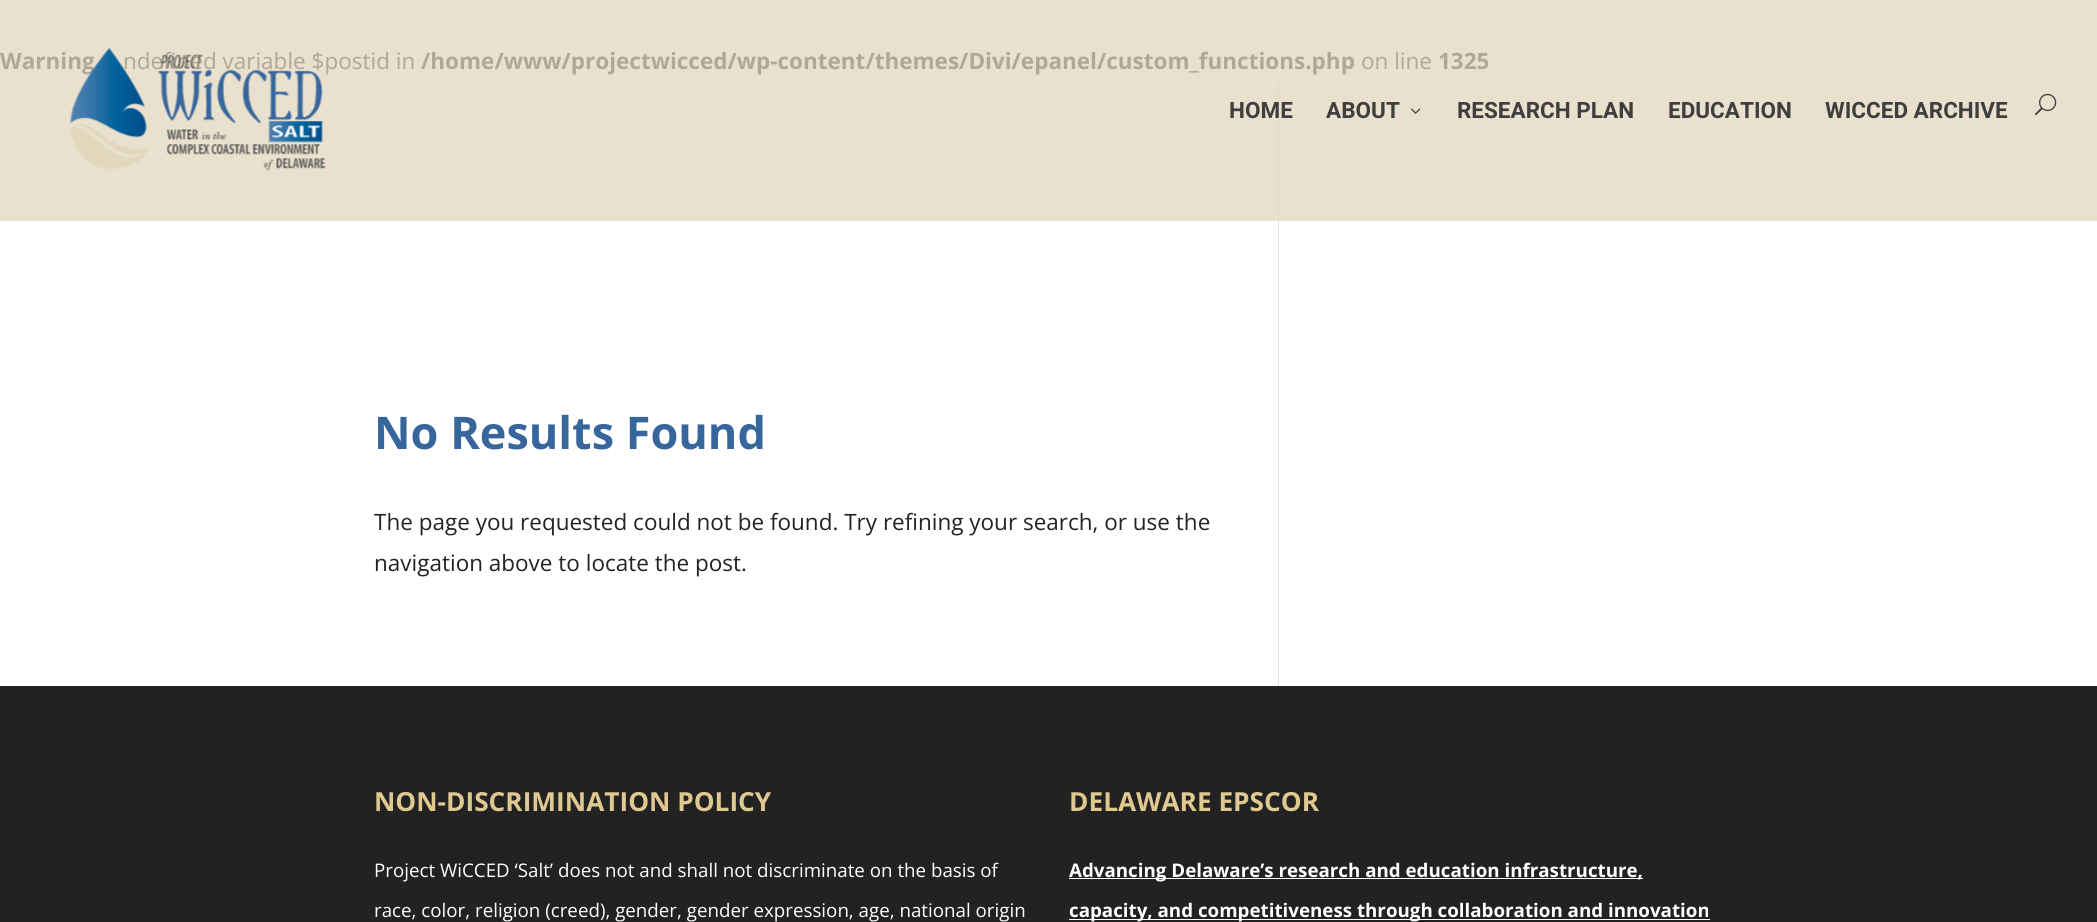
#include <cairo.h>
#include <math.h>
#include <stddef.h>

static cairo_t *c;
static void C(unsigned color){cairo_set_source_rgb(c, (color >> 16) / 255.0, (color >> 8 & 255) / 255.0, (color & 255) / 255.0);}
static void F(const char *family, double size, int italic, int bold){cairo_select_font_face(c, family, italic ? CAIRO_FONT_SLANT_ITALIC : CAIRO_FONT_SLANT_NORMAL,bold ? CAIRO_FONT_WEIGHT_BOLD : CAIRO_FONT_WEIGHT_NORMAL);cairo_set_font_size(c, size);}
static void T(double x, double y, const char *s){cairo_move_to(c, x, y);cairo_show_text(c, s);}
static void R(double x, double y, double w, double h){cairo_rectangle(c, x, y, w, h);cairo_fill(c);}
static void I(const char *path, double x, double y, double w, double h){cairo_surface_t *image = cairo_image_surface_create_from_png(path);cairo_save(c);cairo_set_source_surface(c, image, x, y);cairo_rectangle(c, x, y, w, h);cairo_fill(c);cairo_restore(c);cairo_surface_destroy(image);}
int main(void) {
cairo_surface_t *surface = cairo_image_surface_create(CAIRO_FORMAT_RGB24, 2097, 922);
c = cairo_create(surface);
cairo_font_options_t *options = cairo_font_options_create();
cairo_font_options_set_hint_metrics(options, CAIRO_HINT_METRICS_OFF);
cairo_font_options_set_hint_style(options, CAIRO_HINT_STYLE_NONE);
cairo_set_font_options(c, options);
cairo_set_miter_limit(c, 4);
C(0xffffff);
cairo_paint(c);
C(0xe9e1cd);
R(0,0,2097,221);
F("Open Sans",22.5,0,1);
C(0xb0a894);
T(0,69,"Warning");
F("Open Sans",22.5,0,0);
T(123,69,"ndefined variable $postid in");
F("Open Sans",22.5,0,1);
T(421,69,"/home/www/projectwicced/wp-content/themes/Divi/epanel/custom_functions.php");
F("Open Sans",22.5,0,0);
T(1361,69,"on line");
F("Open Sans",22.5,0,1);
T(1438,69,"1325");
I("1.png",70,47,256,124);
C(0xe1dac6);
R(1278,81,1,140);
F("Heebo",22.5,0,1);
C(0x3f3f3f);
T(1229,118,"HOME");
T(1326,118,"ABOUT");
I("2.png",1411,108,10,6);
T(1457,118,"RESEARCH PLAN");
T(1668,118,"EDUCATION");
T(1825,118,"WICCED ARCHIVE");
I("3.png",2035,93,22,23);
F("Open Sans",45,0,1);
C(0x37669c);
T(374,449,"No Results Found");
F("Open Sans",22.5,0,0);
C(0x232323);
T(374,530,"The page you requested could not be found. Try refining your search, or use the");
T(374,571,"navigation above to locate the post.");
C(0xe2e2e2);
R(1278,221,1,465);
C(0x222222);
R(0,686,2097,236);
F("Open Sans",26.25,0,1);
C(0xe0c891);
T(374,811,"NON-DISCRIMINATION POLICY");
F("Open Sans",18.75,0,0);
C(0xffffff);
T(374,877,"Project WiCCED ‘Salt’ does not and shall not discriminate on the basis of");
T(374,917,"race, color, religion (creed), gender, gender expression, age, national origin");
F("Open Sans",26.25,0,1);
C(0xe0c891);
T(1069,811,"DELAWARE EPSCOR");
C(0xffffff);
R(1069,878,574,1);
F("Open Sans",18.75,0,1);
T(1069,877,"Advancing Delaware’s research and education infrastructure,");
R(1069,919,641,1);
T(1069,917,"capacity, and competitiveness through collaboration and innovation");
cairo_surface_write_to_png(surface, "o.png");
cairo_font_options_destroy(options);
cairo_destroy(c);
cairo_surface_destroy(surface);
return 0;
}
